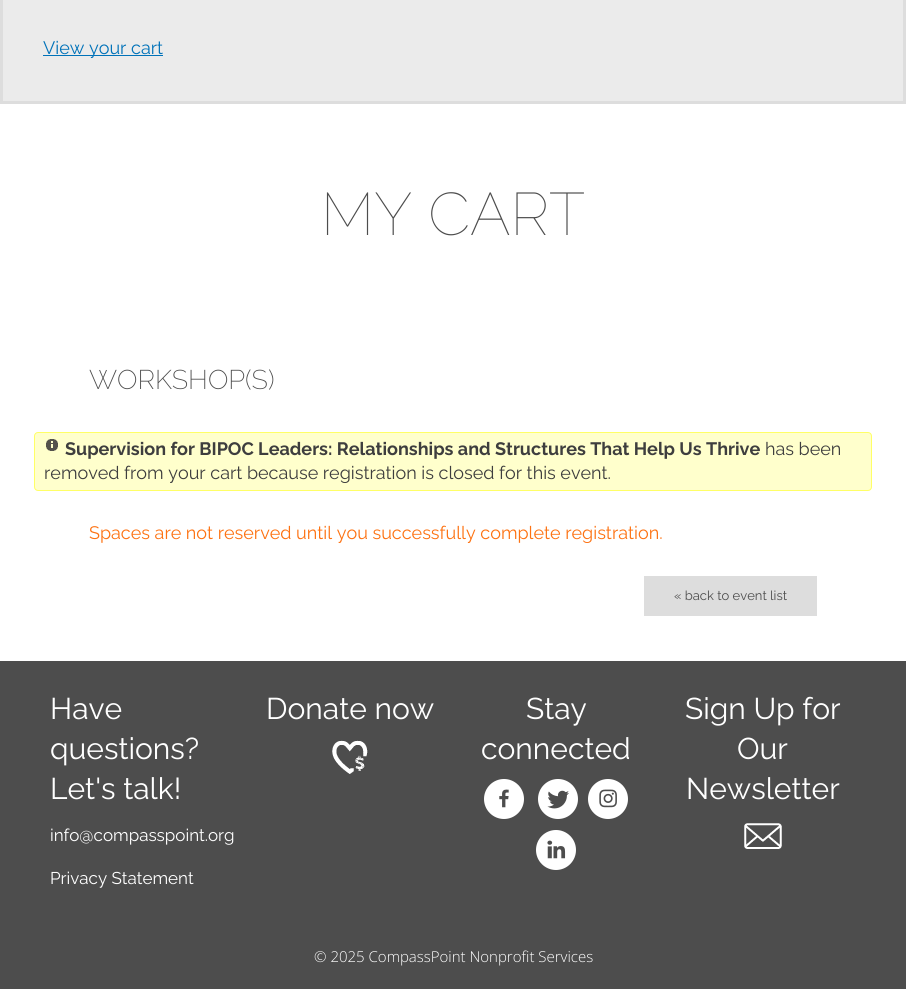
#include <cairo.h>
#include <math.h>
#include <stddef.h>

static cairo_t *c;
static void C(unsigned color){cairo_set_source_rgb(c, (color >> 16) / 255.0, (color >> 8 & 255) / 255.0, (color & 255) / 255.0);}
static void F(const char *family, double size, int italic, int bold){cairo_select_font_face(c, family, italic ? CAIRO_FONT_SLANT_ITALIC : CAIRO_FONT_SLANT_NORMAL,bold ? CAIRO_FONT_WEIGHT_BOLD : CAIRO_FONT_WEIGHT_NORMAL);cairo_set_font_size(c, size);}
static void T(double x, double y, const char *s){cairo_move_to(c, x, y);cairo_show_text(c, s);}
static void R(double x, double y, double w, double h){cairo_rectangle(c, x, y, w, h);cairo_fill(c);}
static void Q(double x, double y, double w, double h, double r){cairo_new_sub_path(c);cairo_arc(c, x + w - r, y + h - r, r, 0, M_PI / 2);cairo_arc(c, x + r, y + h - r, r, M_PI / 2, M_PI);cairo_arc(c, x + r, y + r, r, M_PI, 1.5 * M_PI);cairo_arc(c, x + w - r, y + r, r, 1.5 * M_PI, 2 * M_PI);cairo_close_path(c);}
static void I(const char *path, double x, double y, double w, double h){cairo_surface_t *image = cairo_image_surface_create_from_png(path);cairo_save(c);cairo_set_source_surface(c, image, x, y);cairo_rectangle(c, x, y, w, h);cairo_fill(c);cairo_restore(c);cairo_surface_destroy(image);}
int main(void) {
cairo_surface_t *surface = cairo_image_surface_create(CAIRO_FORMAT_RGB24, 906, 989);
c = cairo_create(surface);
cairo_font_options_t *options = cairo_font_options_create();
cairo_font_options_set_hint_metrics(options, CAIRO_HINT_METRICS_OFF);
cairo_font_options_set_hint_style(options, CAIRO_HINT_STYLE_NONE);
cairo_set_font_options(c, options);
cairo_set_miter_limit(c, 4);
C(0xffffff);
cairo_paint(c);
C(0xebebeb);
cairo_rectangle(c,1.5,-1.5,903,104);
cairo_fill_preserve(c);
C(0xdddddd);
cairo_set_line_width(c,3);
cairo_stroke(c);
C(0x0072b9);
R(43,55,120,1);
F("Raleway",18,0,0);
T(43,54,"View your cart");
F("Raleway Thin",60,0,0);
C(0x4d4d4d);
T(321,235,"MY CART");
F("Raleway ExtraLight",27,0,0);
T(89,389,"WORKSHOP(S)");
C(0xffffcc);
Q(34.5,432.5,837,58,3.5);
cairo_fill_preserve(c);
C(0xffff66);
cairo_set_line_width(c,1);
cairo_stroke(c);
I("1.png",46,439,12,12);
F("Raleway",18,0,1);
C(0x3e3e3e);
T(65,455,"Supervision for BIPOC Leaders: Relationships and Structures That Help Us Thrive");
F("Raleway",18,0,0);
T(765,455,"has been");
T(44,479,"removed from your cart because registration is closed for this event.");
C(0xfd7212);
T(89,539,"Spaces are not reserved until you successfully complete registration.");
C(0xdddddd);
R(644,576,173,40);
F("Raleway",13,0,0);
C(0x4d4d4d);
T(674,600,"« back to event list");
R(0,661,906,328);
F("Raleway",30,0,0);
C(0xffffff);
T(50,719,"Have");
T(50,759,"questions?");
T(50,799,"Let's talk!");
F("Raleway",17,0,0);
T(50,841,"info@compasspoint.org");
T(50,884,"Privacy Statement");
F("Raleway",30,0,0);
T(266,719,"Donate now");
I("2.png",332,740,36,34);
T(526,719,"Stay");
T(481,759,"connected");
I("3.png",484,779,40,40);
I("4.png",538,779,40,40);
I("5.png",588,779,40,40);
I("6.png",536,830,40,40);
T(685,719,"Sign Up for");
T(737,759,"Our");
T(686,799,"Newsletter");
I("7.png",744,823,38,26);
F("Open Sans Light",15,0,0);
T(314,962,"© 2025 CompassPoint Nonprofit Services");
cairo_surface_write_to_png(surface, "o.png");
cairo_font_options_destroy(options);
cairo_destroy(c);
cairo_surface_destroy(surface);
return 0;
}
